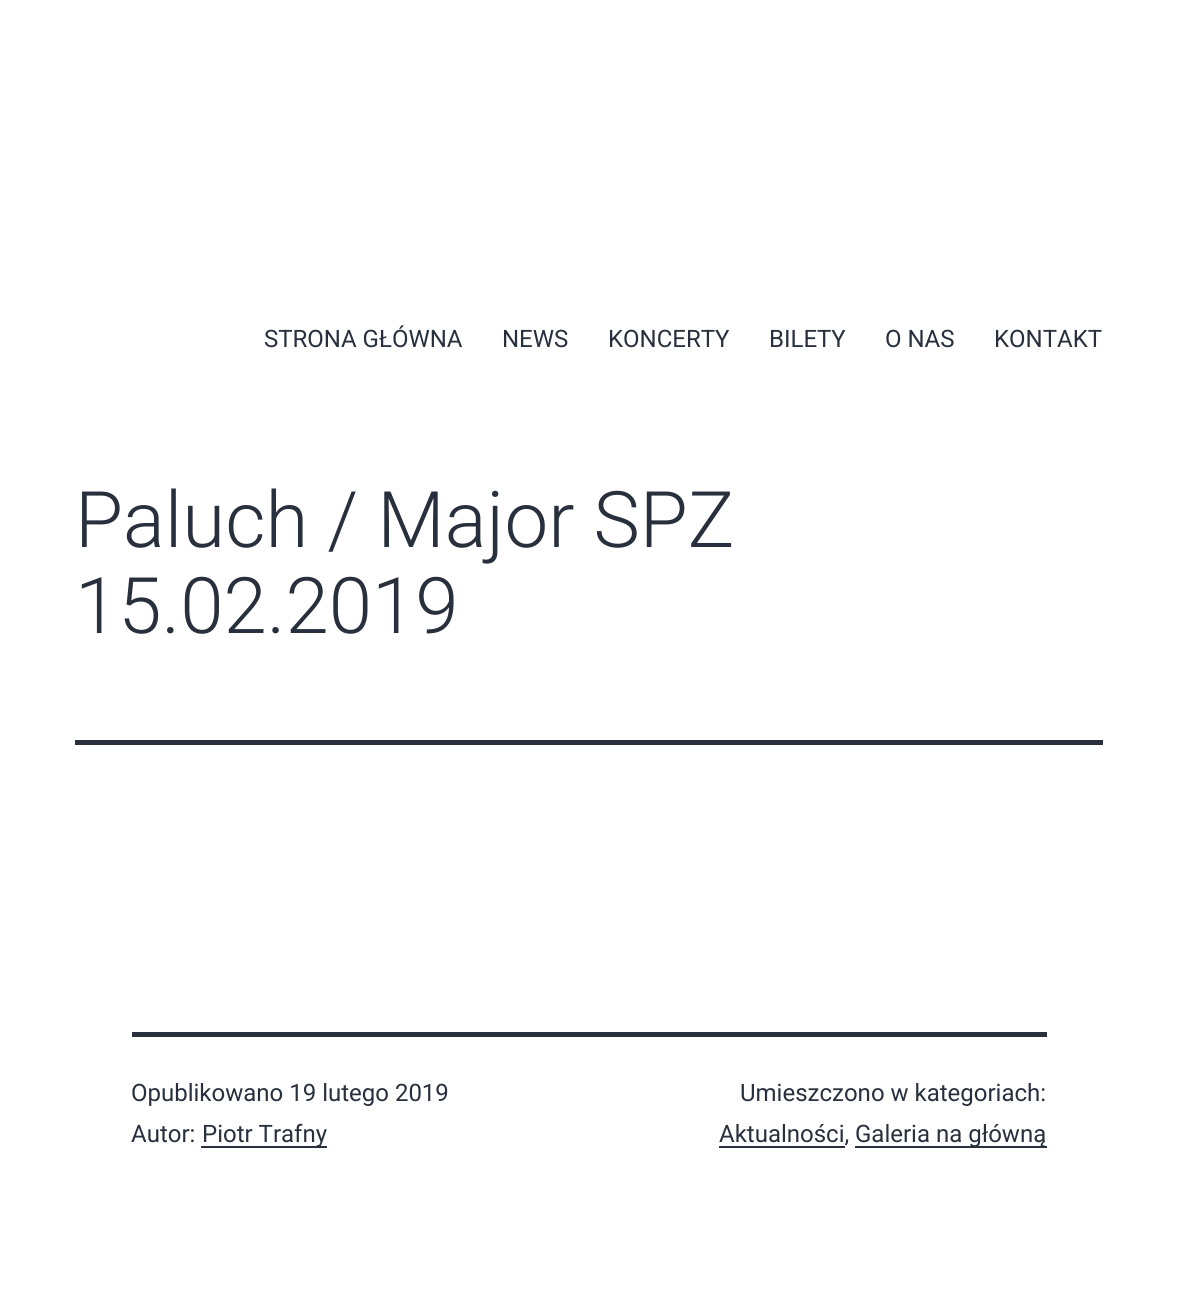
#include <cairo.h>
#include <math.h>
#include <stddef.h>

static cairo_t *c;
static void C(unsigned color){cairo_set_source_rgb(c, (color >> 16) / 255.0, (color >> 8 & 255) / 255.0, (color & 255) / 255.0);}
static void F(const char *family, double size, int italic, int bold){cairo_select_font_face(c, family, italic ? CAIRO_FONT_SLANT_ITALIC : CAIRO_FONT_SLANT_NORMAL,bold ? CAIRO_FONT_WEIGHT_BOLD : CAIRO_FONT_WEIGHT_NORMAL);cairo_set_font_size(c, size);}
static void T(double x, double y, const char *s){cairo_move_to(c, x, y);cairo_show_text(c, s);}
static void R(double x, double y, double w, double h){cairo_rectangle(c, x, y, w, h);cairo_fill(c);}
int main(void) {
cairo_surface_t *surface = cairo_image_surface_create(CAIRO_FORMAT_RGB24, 1177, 1316);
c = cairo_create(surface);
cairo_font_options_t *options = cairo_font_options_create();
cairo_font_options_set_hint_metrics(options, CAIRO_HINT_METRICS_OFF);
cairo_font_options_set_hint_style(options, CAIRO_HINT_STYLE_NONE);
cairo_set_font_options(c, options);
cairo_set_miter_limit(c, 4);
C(0xffffff);
cairo_paint(c);
F("Roboto",24,0,0);
C(0x28303d);
T(264,347,"STRONA GŁÓWNA");
T(502,347,"NEWS");
T(608,347,"KONCERTY");
T(769,347,"BILETY");
T(885,347,"O NAS");
T(994,347,"KONTAKT");
R(75,740,1028,5);
F("Roboto Light",78,0,0);
T(75,547,"Paluch / Major SPZ");
T(75,633,"15.02.2019");
R(132,1032,915,5);
F("Roboto",24,0,0);
T(131,1101,"Opublikowano 19 lutego 2019");
T(131,1142,"Autor:");
R(201,1146,126,2);
T(202,1142,"Piotr Trafny");
T(740,1101,"Umieszczono w kategoriach:");
T(719,1142,"Aktualności,");
R(719,1146,126,2);
R(855,1146,192,2);
T(855,1142,"Galeria na główną");
cairo_surface_write_to_png(surface, "o.png");
cairo_font_options_destroy(options);
cairo_destroy(c);
cairo_surface_destroy(surface);
return 0;
}
